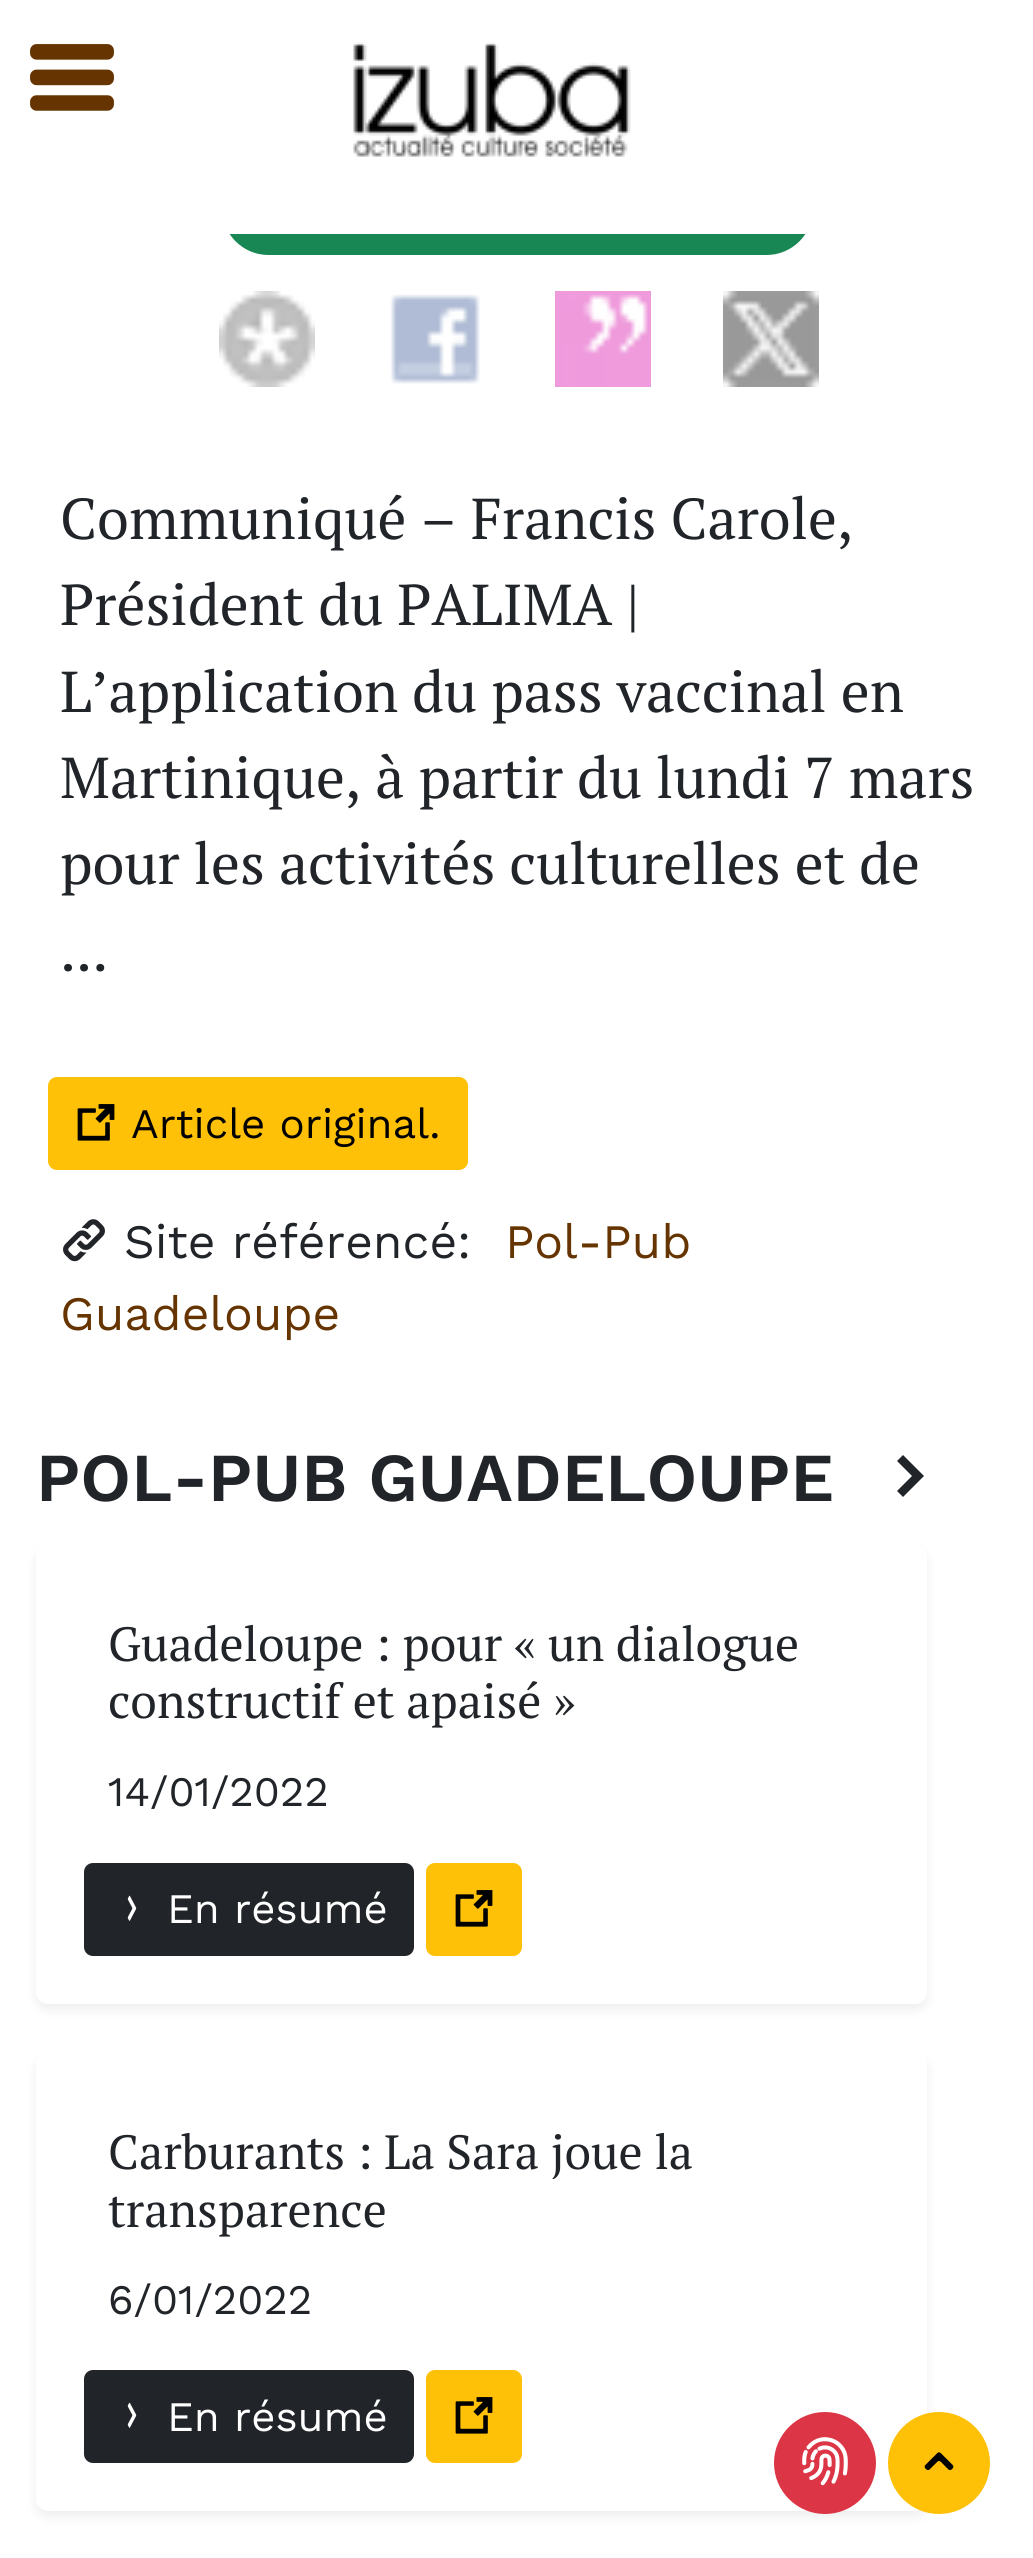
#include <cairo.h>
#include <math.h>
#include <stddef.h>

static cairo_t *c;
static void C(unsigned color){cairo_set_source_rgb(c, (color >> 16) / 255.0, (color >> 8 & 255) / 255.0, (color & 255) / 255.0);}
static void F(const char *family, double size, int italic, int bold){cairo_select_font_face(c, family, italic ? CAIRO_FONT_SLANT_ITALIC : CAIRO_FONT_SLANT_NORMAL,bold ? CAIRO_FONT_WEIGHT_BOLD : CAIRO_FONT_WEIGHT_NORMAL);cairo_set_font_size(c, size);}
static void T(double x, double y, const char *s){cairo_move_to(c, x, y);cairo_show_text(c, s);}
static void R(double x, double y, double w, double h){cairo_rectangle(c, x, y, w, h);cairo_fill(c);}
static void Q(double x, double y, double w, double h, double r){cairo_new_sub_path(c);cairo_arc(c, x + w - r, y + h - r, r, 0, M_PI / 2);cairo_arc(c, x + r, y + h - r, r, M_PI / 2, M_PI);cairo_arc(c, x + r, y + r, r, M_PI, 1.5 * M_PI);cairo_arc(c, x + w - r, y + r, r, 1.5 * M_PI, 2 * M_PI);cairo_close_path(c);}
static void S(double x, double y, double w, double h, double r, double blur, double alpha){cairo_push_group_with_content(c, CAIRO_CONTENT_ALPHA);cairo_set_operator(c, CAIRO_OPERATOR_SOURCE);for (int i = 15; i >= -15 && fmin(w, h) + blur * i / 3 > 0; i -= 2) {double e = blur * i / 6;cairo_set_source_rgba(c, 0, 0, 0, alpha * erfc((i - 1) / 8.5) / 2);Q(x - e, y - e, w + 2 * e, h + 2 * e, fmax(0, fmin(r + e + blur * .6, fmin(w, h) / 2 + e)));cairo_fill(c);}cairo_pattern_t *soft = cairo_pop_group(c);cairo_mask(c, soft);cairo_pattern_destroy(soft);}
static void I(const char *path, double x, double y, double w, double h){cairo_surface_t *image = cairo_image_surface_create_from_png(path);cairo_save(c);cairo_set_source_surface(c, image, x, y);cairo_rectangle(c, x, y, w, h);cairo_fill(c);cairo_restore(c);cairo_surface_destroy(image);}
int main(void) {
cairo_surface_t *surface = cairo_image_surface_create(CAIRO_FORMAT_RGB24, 1033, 2558);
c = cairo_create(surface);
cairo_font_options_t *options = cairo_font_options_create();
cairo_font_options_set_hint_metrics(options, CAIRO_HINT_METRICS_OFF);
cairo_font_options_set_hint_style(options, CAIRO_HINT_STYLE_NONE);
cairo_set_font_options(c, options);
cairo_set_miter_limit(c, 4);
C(0xffffff);
cairo_paint(c);
I("1.png",30,44,84,67);
C(0x198754);
Q(223.5,163.5,588,90,45);
cairo_fill_preserve(c);
cairo_set_line_width(c,3);
cairo_stroke(c);
C(0xffffff);
R(222,162,591,72);
I("2.png",353,42,278,115);
I("3.png",219,291,96,96);
I("4.png",390,294,90,90);
I("5.png",555,291,96,96);
I("6.png",723,291,96,96);
F("PT Serif",57.6,0,0);
C(0x212529);
T(60,539,"Communiqué – Francis Carole,");
T(60,625,"Président du PALIMA |");
T(60,712,"L’application du pass vaccinal en");
T(60,798,"Martinique, à partir du lundi 7 mars");
T(60,884,"pour les activités culturelles et de");
T(60,971,"...");
C(0xffc107);
Q(49.5,1078.5,417,90,7.5);
cairo_fill_preserve(c);
cairo_stroke(c);
I("7.png",77,1104,38,37);
F("Work Sans",42,0,0);
C(0x000000);
T(131,1138,"Article original.");
I("8.png",63,1219,42,43);
F("Work Sans",48,0,0);
C(0x212529);
T(124,1258,"Site référencé:");
C(0x653400);
T(505,1258,"Pol-Pub");
T(60,1330,"Guadeloupe");
F("Work Sans SemiBold",68.6,0,0);
C(0x212529);
T(36,1501,"POL-PUB GUADELOUPE");
cairo_new_path(c);
cairo_move_to(c,903,1497);
cairo_line_to(c,924,1476);
cairo_line_to(c,903,1455);
cairo_line_to(c,897,1461);
cairo_line_to(c,912,1476);
cairo_line_to(c,897,1491);
cairo_close_path(c);
cairo_fill(c);
C(0x000000);
S(36,1551,891,459,12,6,.07);
C(0xffffff);
Q(36,1545,891,459,12);
cairo_fill(c);
F("PT Serif",48,0,0);
C(0x212529);
T(108,1661,"Guadeloupe : pour « un dialogue");
T(108,1718,"constructif et apaisé »");
F("Work Sans",42,0,0);
T(108,1806,"14/01/2022");
Q(85.5,1864.5,327,90,7.5);
cairo_fill_preserve(c);
cairo_stroke(c);
I("9.png",127,1895,10,26);
C(0xffffff);
T(167,1923,"En résumé");
C(0xffc107);
Q(427.5,1864.5,93,90,7.5);
cairo_fill_preserve(c);
cairo_stroke(c);
I("7.png",455,1890,38,37);
C(0x000000);
S(36,2058,891,459,12,6,.07);
C(0xffffff);
Q(36,2052,891,459,12);
cairo_fill(c);
F("PT Serif",48,0,0);
C(0x212529);
T(108,2169,"Carburants : La Sara joue la");
T(108,2227,"transparence");
F("Work Sans",42,0,0);
T(108,2314,"6/01/2022");
Q(85.5,2371.5,327,90,7.5);
cairo_fill_preserve(c);
cairo_stroke(c);
I("9.png",127,2402,10,26);
C(0xffffff);
T(167,2431,"En résumé");
C(0xffc107);
Q(427.5,2371.5,93,90,7.5);
cairo_fill_preserve(c);
cairo_stroke(c);
I("7.png",455,2397,38,37);
C(0xdc3545);
cairo_arc(c,825,2463,49.5,0,2 * M_PI);
cairo_fill_preserve(c);
cairo_stroke(c);
I("10.png",802,2437,46,49);
C(0xffc107);
cairo_arc(c,939,2463,49.5,0,2 * M_PI);
cairo_fill_preserve(c);
cairo_stroke(c);
I("11.png",924,2452,30,18);
cairo_surface_write_to_png(surface, "o.png");
cairo_font_options_destroy(options);
cairo_destroy(c);
cairo_surface_destroy(surface);
return 0;
}
